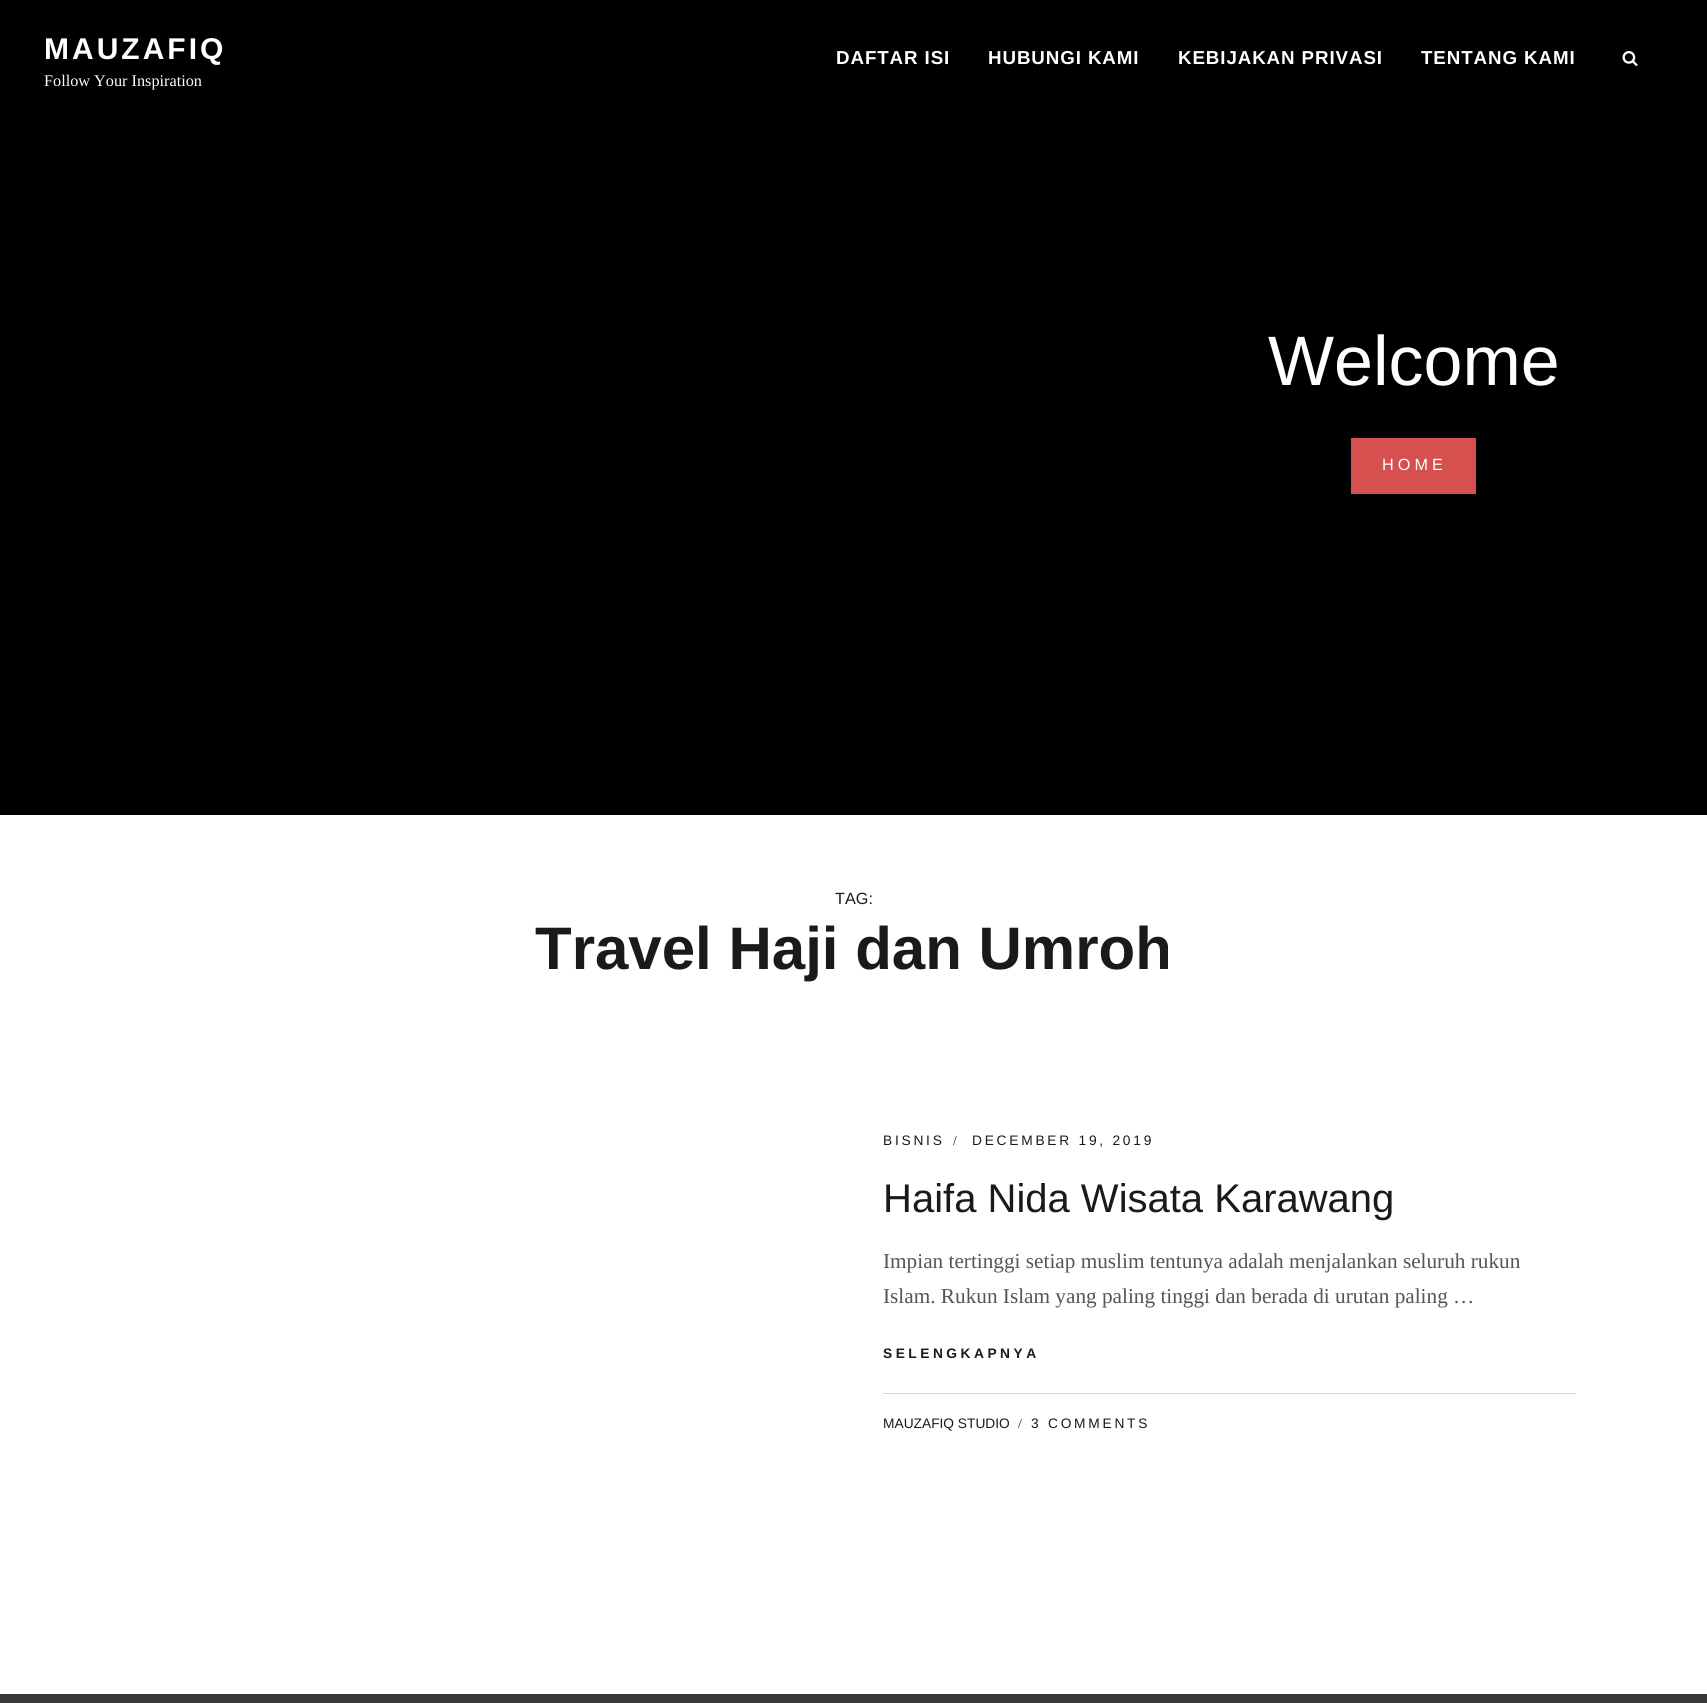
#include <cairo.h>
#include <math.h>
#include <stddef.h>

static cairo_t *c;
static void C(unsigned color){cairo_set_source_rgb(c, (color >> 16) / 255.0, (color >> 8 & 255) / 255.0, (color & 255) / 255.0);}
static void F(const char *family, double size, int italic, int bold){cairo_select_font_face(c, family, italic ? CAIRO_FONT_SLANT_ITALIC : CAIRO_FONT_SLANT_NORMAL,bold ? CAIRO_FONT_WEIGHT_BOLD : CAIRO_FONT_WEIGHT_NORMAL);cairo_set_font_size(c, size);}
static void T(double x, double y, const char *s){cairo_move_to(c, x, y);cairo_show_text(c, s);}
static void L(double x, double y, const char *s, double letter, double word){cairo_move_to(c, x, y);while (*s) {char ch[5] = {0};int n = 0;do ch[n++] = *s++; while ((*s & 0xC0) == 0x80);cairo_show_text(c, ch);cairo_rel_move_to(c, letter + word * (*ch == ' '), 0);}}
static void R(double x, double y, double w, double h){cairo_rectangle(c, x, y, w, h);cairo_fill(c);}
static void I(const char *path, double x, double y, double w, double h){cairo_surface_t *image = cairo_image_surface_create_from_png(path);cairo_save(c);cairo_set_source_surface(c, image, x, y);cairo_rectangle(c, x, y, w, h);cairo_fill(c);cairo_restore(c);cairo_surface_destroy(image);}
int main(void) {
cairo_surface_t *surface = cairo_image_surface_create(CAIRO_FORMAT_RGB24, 1707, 1703);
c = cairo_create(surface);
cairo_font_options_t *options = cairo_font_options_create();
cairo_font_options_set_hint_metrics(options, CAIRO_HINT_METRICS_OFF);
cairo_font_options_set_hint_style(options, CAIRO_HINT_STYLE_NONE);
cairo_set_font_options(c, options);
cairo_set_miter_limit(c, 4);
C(0xffffff);
cairo_paint(c);
C(0x000000);
R(0,0,1707,815);
F("Liberation Sans",30,0,1);
C(0xffffff);
L(44,59,"MAUZAFIQ",3,0);
F("Liberation Serif",16.25,0,0);
T(44,86,"Follow Your Inspiration");
F("Liberation Sans",18.75,0,1);
L(836,64,"DAFTAR ISI",.9,0);
L(988,64,"HUBUNGI KAMI",.9,0);
L(1178,64,"KEBIJAKAN PRIVASI",.9,0);
L(1421,64,"TENTANG KAMI",.9,0);
I("1.png",1622,51,16,16);
F("Liberation Sans",70,0,0);
T(1268,385,"Welcome");
C(0xd65050);
R(1351,438,125,56);
F("Liberation Sans",16.25,0,0);
C(0xffffff);
L(1382,470,"HOME",4,0);
C(0x1a1a1a);
T(835,904,"TAG:");
F("Liberation Sans",60,0,1);
T(535,969,"Travel Haji dan Umroh");
F("Liberation Sans",13.75,0,0);
L(883,1145,"BISNIS",2.75,0);
F("Liberation Serif",13.75,0,0);
L(953,1145,"/",2.75,0);
F("Liberation Sans",13.75,0,0);
L(972,1145,"DECEMBER 19, 2019",2.75,0);
F("Liberation Sans",40,0,0);
T(883,1212,"Haifa Nida Wisata Karawang");
F("Liberation Serif",21.25,0,0);
C(0x555555);
T(883,1268,"Impian tertinggi setiap muslim tentunya adalah menjalankan seluruh rukun");
T(883,1303,"Islam. Rukun Islam yang paling tinggi dan berada di urutan paling …");
F("Liberation Sans",13.75,0,1);
C(0x1a1a1a);
L(883,1358,"SELENGKAPNYA",3.5,0);
C(0xd5d5d5);
R(883,1393,693,1);
F("Liberation Sans",13.75,0,0);
C(0x1a1a1a);
T(883,1428,"MAUZAFIQ STUDIO");
F("Liberation Serif",13.75,0,0);
L(1018,1428,"/",2.75,0);
F("Liberation Sans",13.75,0,0);
L(1031,1428,"3 COMMENTS",2.75,0);
C(0x383838);
R(0,1694,1707,9);
cairo_surface_write_to_png(surface, "o.png");
cairo_font_options_destroy(options);
cairo_destroy(c);
cairo_surface_destroy(surface);
return 0;
}
